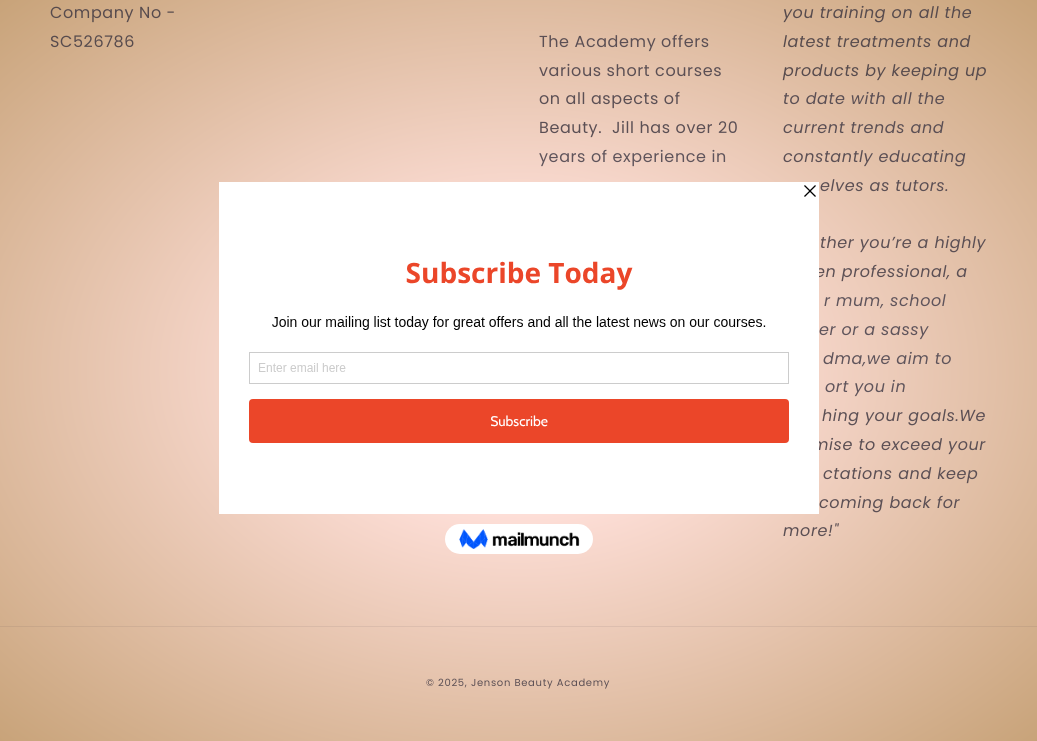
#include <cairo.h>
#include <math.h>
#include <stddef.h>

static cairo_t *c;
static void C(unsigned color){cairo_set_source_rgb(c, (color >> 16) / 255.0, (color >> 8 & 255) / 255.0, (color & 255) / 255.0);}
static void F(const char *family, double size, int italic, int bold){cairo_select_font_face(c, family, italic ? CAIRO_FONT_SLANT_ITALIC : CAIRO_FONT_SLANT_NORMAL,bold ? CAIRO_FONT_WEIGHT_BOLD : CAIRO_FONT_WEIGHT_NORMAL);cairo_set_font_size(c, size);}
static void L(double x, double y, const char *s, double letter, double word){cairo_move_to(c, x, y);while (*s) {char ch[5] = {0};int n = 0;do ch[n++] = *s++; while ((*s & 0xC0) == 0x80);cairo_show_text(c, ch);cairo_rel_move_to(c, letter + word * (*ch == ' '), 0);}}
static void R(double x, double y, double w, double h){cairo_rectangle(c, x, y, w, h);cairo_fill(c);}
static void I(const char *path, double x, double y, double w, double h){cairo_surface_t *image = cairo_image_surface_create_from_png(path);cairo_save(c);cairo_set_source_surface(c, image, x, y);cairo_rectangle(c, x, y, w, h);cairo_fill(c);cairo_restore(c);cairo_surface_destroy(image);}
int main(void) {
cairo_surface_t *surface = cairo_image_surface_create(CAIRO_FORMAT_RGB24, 1037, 741);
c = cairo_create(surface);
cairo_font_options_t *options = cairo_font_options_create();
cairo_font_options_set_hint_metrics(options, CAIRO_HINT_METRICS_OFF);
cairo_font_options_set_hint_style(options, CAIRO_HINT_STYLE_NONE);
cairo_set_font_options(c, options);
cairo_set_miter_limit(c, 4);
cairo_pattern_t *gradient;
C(0xffffff);
cairo_paint(c);
gradient = cairo_pattern_create_radial(0,0,0,0,0,1);
cairo_pattern_set_matrix(gradient, &(cairo_matrix_t){1.0 / 733, 0, 0, 1.0 / 524, -1.0 * 519 / 733, -1.0 * 371 / 524});
cairo_pattern_add_color_stop_rgba(gradient,0,0.784,0.639,0.475,1);
cairo_pattern_add_color_stop_rgba(gradient,.25,1,0.878,0.855,1);
cairo_pattern_add_color_stop_rgba(gradient,1,0.784,0.639,0.475,1);
cairo_set_source(c,gradient);
cairo_pattern_destroy(gradient);
R(0,0,1037,741);
gradient = cairo_pattern_create_radial(0,0,0,0,0,1);
cairo_pattern_set_matrix(gradient, &(cairo_matrix_t){1.0 / 733, 0, 0, 1.0 / 524, -1.0 * 519 / 733, -1.0 * 371 / 524});
cairo_pattern_add_color_stop_rgba(gradient,0,0.737,0.6,0.455,1);
cairo_pattern_add_color_stop_rgba(gradient,.25,0.933,0.82,0.804,1);
cairo_pattern_add_color_stop_rgba(gradient,1,0.737,0.6,0.455,1);
cairo_set_source(c,gradient);
cairo_pattern_destroy(gradient);
R(0,626,1037,1);
F("Poppins",16,0,0);
C(0x574b4d);
L(50,18,"Company No -",.6,0);
L(50,47,"SC526786",.6,0);
F("Poppins",16,1,0);
L(783,18,"you training on all the",.6,0);
L(783,47,"latest treatments and",.6,0);
L(783,76,"products by keeping up",.6,0);
C(0x5b4f54);
L(783,104,"to date with all the",.6,0);
L(783,133,"current trends and",.6,0);
L(783,162,"constantly educating",.6,0);
L(820,191,"elves as tutors.",.6,0);
L(820,248,"ther you’re a highly",.6,0);
L(815,277,"en professional, a",.6,0);
C(0x5f545b);
L(824,306,"r mum, school",.6,0);
L(819,335,"er or a sassy",.6,0);
L(823,364,"dma,we aim to",.6,0);
L(825,392,"ort you in",.6,0);
C(0x5b4f54);
L(822,421,"hing your goals.We",.6,0);
L(812,450,"mise to exceed your",.6,0);
L(823,479,"ctations and keep",.6,0);
L(819,508,"coming back for",.6,0);
L(783,536,"more!\"",.6,0);
F("Poppins",16,0,0);
L(539,47,"The Academy offers",.6,0);
L(539,76,"various short courses",.6,0);
L(539,104,"on all aspects of",.6,0);
L(539,133,"Beauty.  Jill has over 20",.6,0);
C(0x5f545b);
L(539,162,"years of experience in",.6,0);
F("Poppins",10,0,0);
C(0x5b4f54);
L(426,686,"© 2025, Jenson Beauty Academy",.7,0);
I("1.png",219,182,600,372);
cairo_surface_write_to_png(surface, "o.png");
cairo_font_options_destroy(options);
cairo_destroy(c);
cairo_surface_destroy(surface);
return 0;
}
